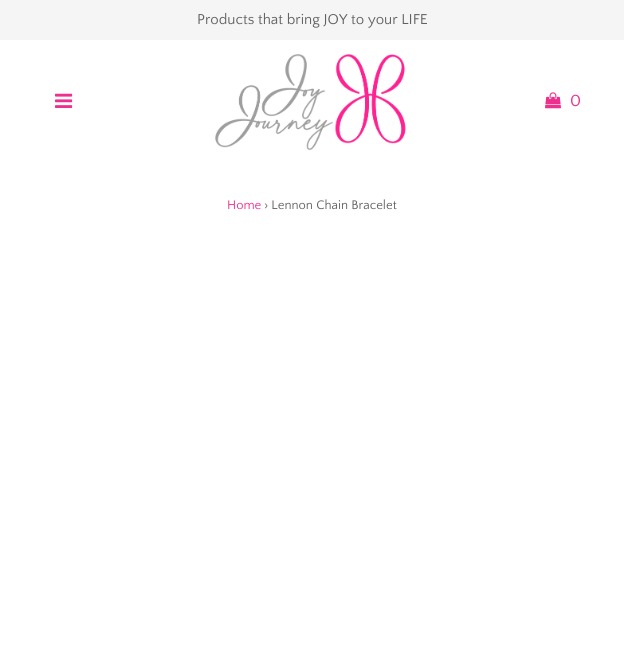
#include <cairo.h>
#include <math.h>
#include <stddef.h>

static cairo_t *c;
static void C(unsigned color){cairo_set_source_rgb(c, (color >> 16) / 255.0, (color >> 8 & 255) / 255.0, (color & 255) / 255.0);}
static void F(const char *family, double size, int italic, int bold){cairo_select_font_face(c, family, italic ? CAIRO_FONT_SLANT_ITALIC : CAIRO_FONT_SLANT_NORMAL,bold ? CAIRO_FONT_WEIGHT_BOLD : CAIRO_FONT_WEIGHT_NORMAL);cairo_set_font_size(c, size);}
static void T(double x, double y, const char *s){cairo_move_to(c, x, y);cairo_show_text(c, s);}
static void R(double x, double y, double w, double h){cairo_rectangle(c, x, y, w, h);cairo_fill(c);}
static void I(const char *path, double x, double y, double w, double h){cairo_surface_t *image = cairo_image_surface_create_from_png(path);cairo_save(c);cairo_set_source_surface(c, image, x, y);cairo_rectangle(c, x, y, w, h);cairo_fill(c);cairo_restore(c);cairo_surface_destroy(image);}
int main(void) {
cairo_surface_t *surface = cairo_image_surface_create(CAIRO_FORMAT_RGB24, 624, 650);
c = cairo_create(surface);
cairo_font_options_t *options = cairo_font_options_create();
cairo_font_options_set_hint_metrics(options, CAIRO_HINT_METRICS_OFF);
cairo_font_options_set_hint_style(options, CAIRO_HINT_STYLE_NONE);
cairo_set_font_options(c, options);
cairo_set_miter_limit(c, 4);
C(0xffffff);
cairo_paint(c);
C(0xf5f5f5);
R(0,0,624,40);
F("Quattrocento Sans",15,0,0);
C(0x616161);
T(197,24,"Products that bring JOY to your LIFE");
I("1.png",55,93,18,15);
I("2.png",215,54,191,97);
I("3.png",545,92,16,17);
F("Quattrocento Sans",17,0,0);
C(0xed308e);
T(570,106,"0");
F("Quattrocento Sans",13,0,0);
T(227,209,"Home");
C(0x616161);
T(264,209,"› Lennon Chain Bracelet");
cairo_surface_write_to_png(surface, "o.png");
cairo_font_options_destroy(options);
cairo_destroy(c);
cairo_surface_destroy(surface);
return 0;
}
